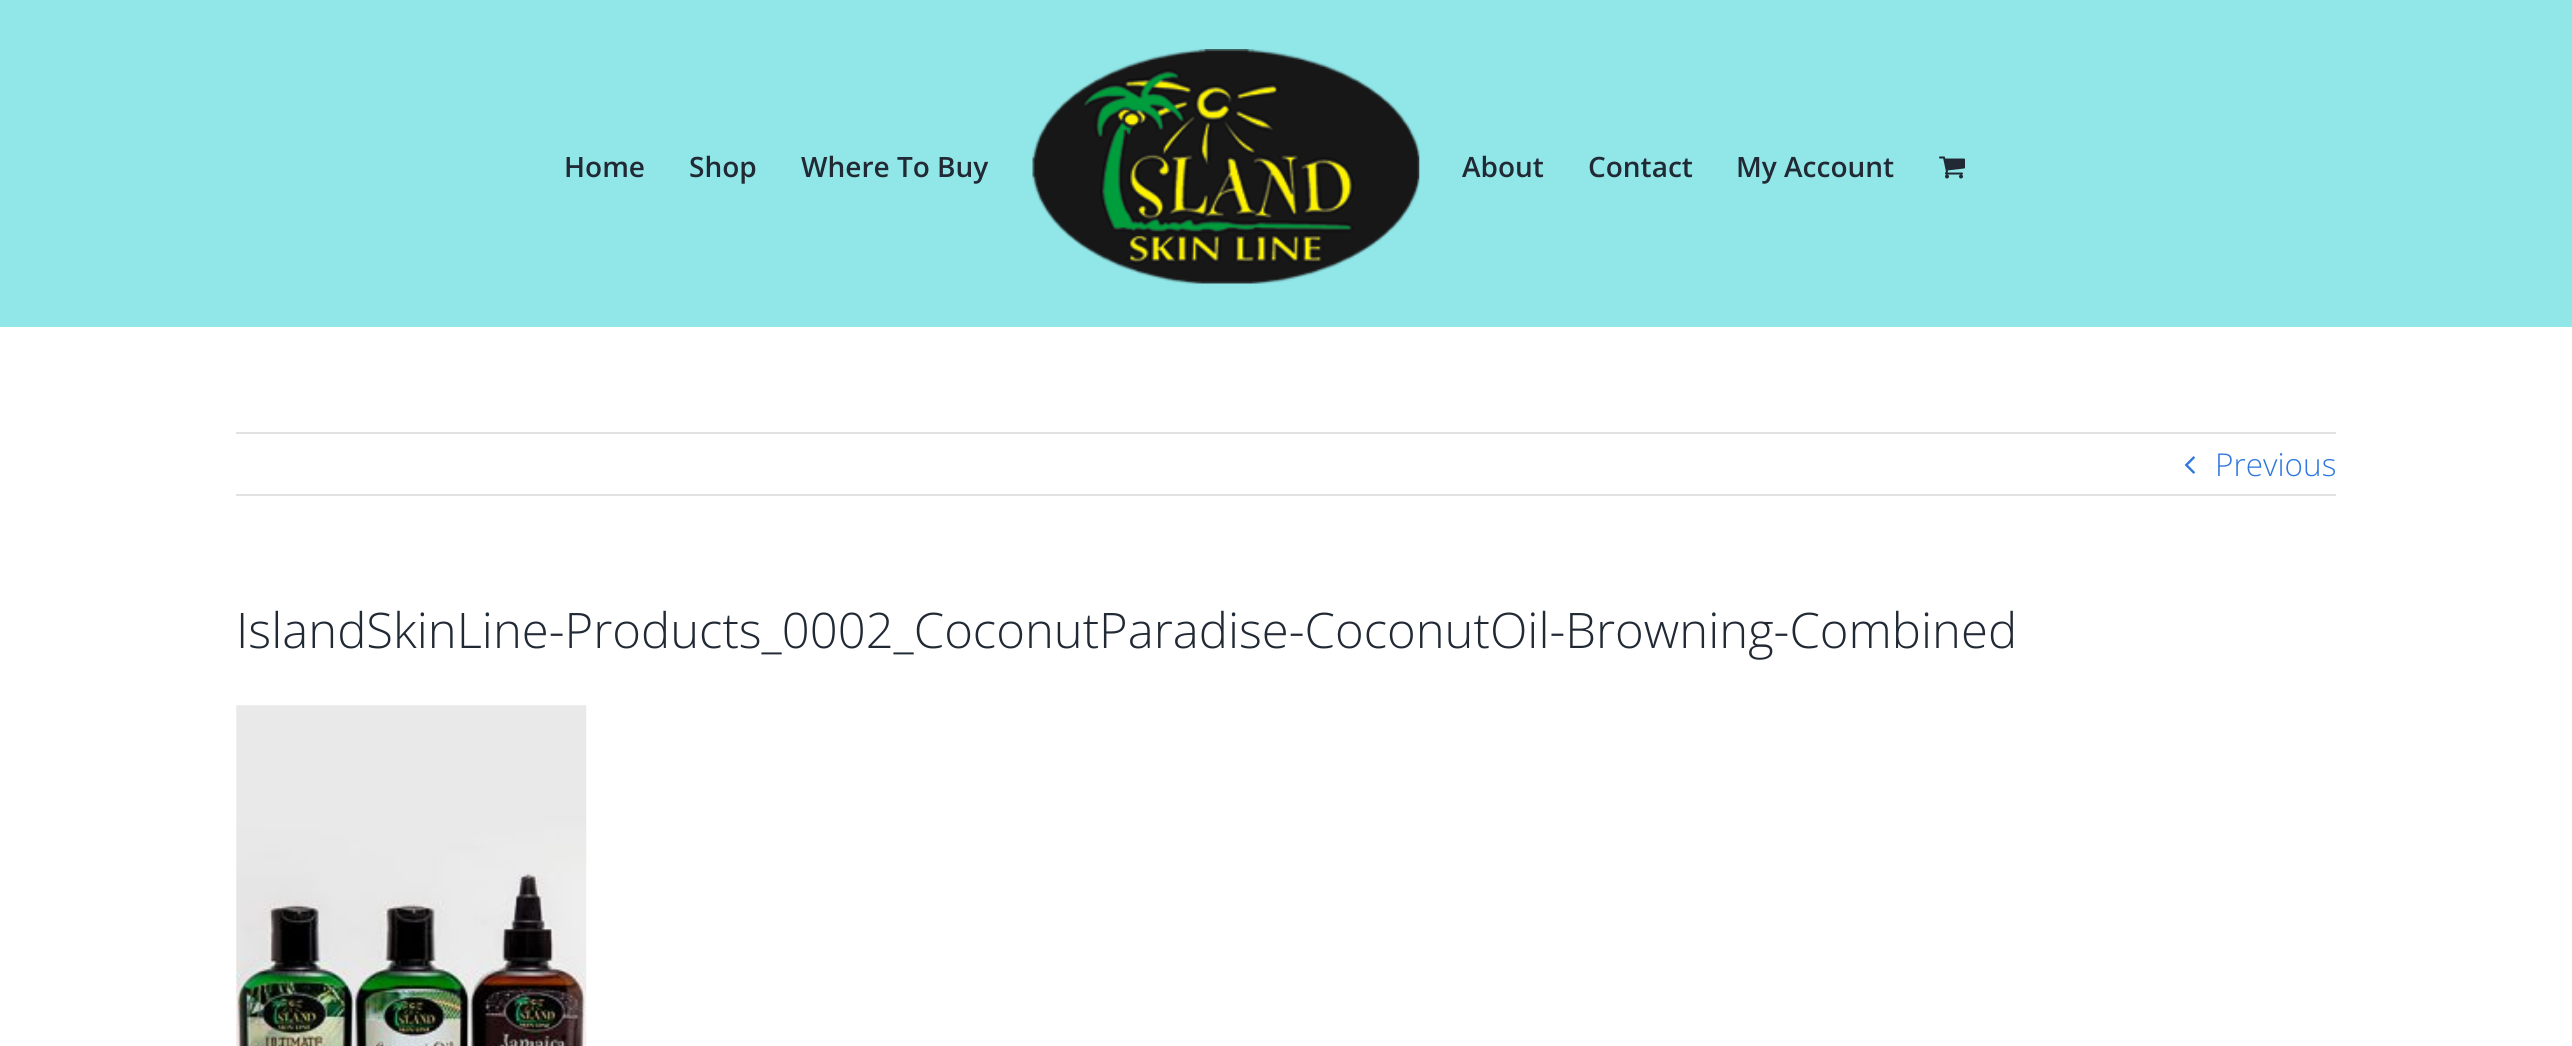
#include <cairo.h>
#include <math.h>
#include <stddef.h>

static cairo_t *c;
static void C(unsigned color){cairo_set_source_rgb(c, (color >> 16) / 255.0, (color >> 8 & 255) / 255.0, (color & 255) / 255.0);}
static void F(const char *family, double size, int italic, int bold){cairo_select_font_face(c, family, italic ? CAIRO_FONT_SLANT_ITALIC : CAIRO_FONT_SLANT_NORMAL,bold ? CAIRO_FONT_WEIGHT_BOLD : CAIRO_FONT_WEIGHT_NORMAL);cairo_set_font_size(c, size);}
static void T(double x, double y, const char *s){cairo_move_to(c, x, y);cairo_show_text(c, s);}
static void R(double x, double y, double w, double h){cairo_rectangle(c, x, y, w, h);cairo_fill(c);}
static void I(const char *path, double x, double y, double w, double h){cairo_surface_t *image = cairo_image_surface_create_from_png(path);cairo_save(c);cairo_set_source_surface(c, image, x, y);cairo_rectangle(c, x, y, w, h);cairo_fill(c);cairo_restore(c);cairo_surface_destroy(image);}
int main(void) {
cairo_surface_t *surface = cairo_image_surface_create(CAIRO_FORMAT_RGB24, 2572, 1046);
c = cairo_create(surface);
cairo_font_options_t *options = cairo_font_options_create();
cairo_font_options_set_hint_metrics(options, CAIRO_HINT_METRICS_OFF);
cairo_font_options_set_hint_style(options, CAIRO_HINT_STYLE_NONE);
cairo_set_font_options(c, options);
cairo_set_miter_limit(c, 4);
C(0xffffff);
cairo_paint(c);
C(0x91e6e7);
R(0,0,2572,327);
F("Open Sans SemiBold",28,0,0);
C(0x212934);
T(564,177,"Home");
T(689,177,"Shop");
T(801,177,"Where To Buy");
I("1.png",1032,49,388,235);
T(1462,177,"About");
T(1588,177,"Contact");
T(1736,177,"My Account");
I("2.png",1939,156,26,23);
C(0xe2e2e2);
R(236,432,2100,2);
R(236,494,2100,2);
I("3.png",2184,456,11,18);
F("Open Sans Light",31.5,0,0);
C(0x3078dd);
T(2215,476,"Previous");
F("Open Sans Light",49,0,0);
C(0x212934);
T(236,648,"IslandSkinLine-Products_0002_CoconutParadise-CoconutOil-Browning-Combined");
I("4.png",236,705,351,341);
cairo_surface_write_to_png(surface, "o.png");
cairo_font_options_destroy(options);
cairo_destroy(c);
cairo_surface_destroy(surface);
return 0;
}
